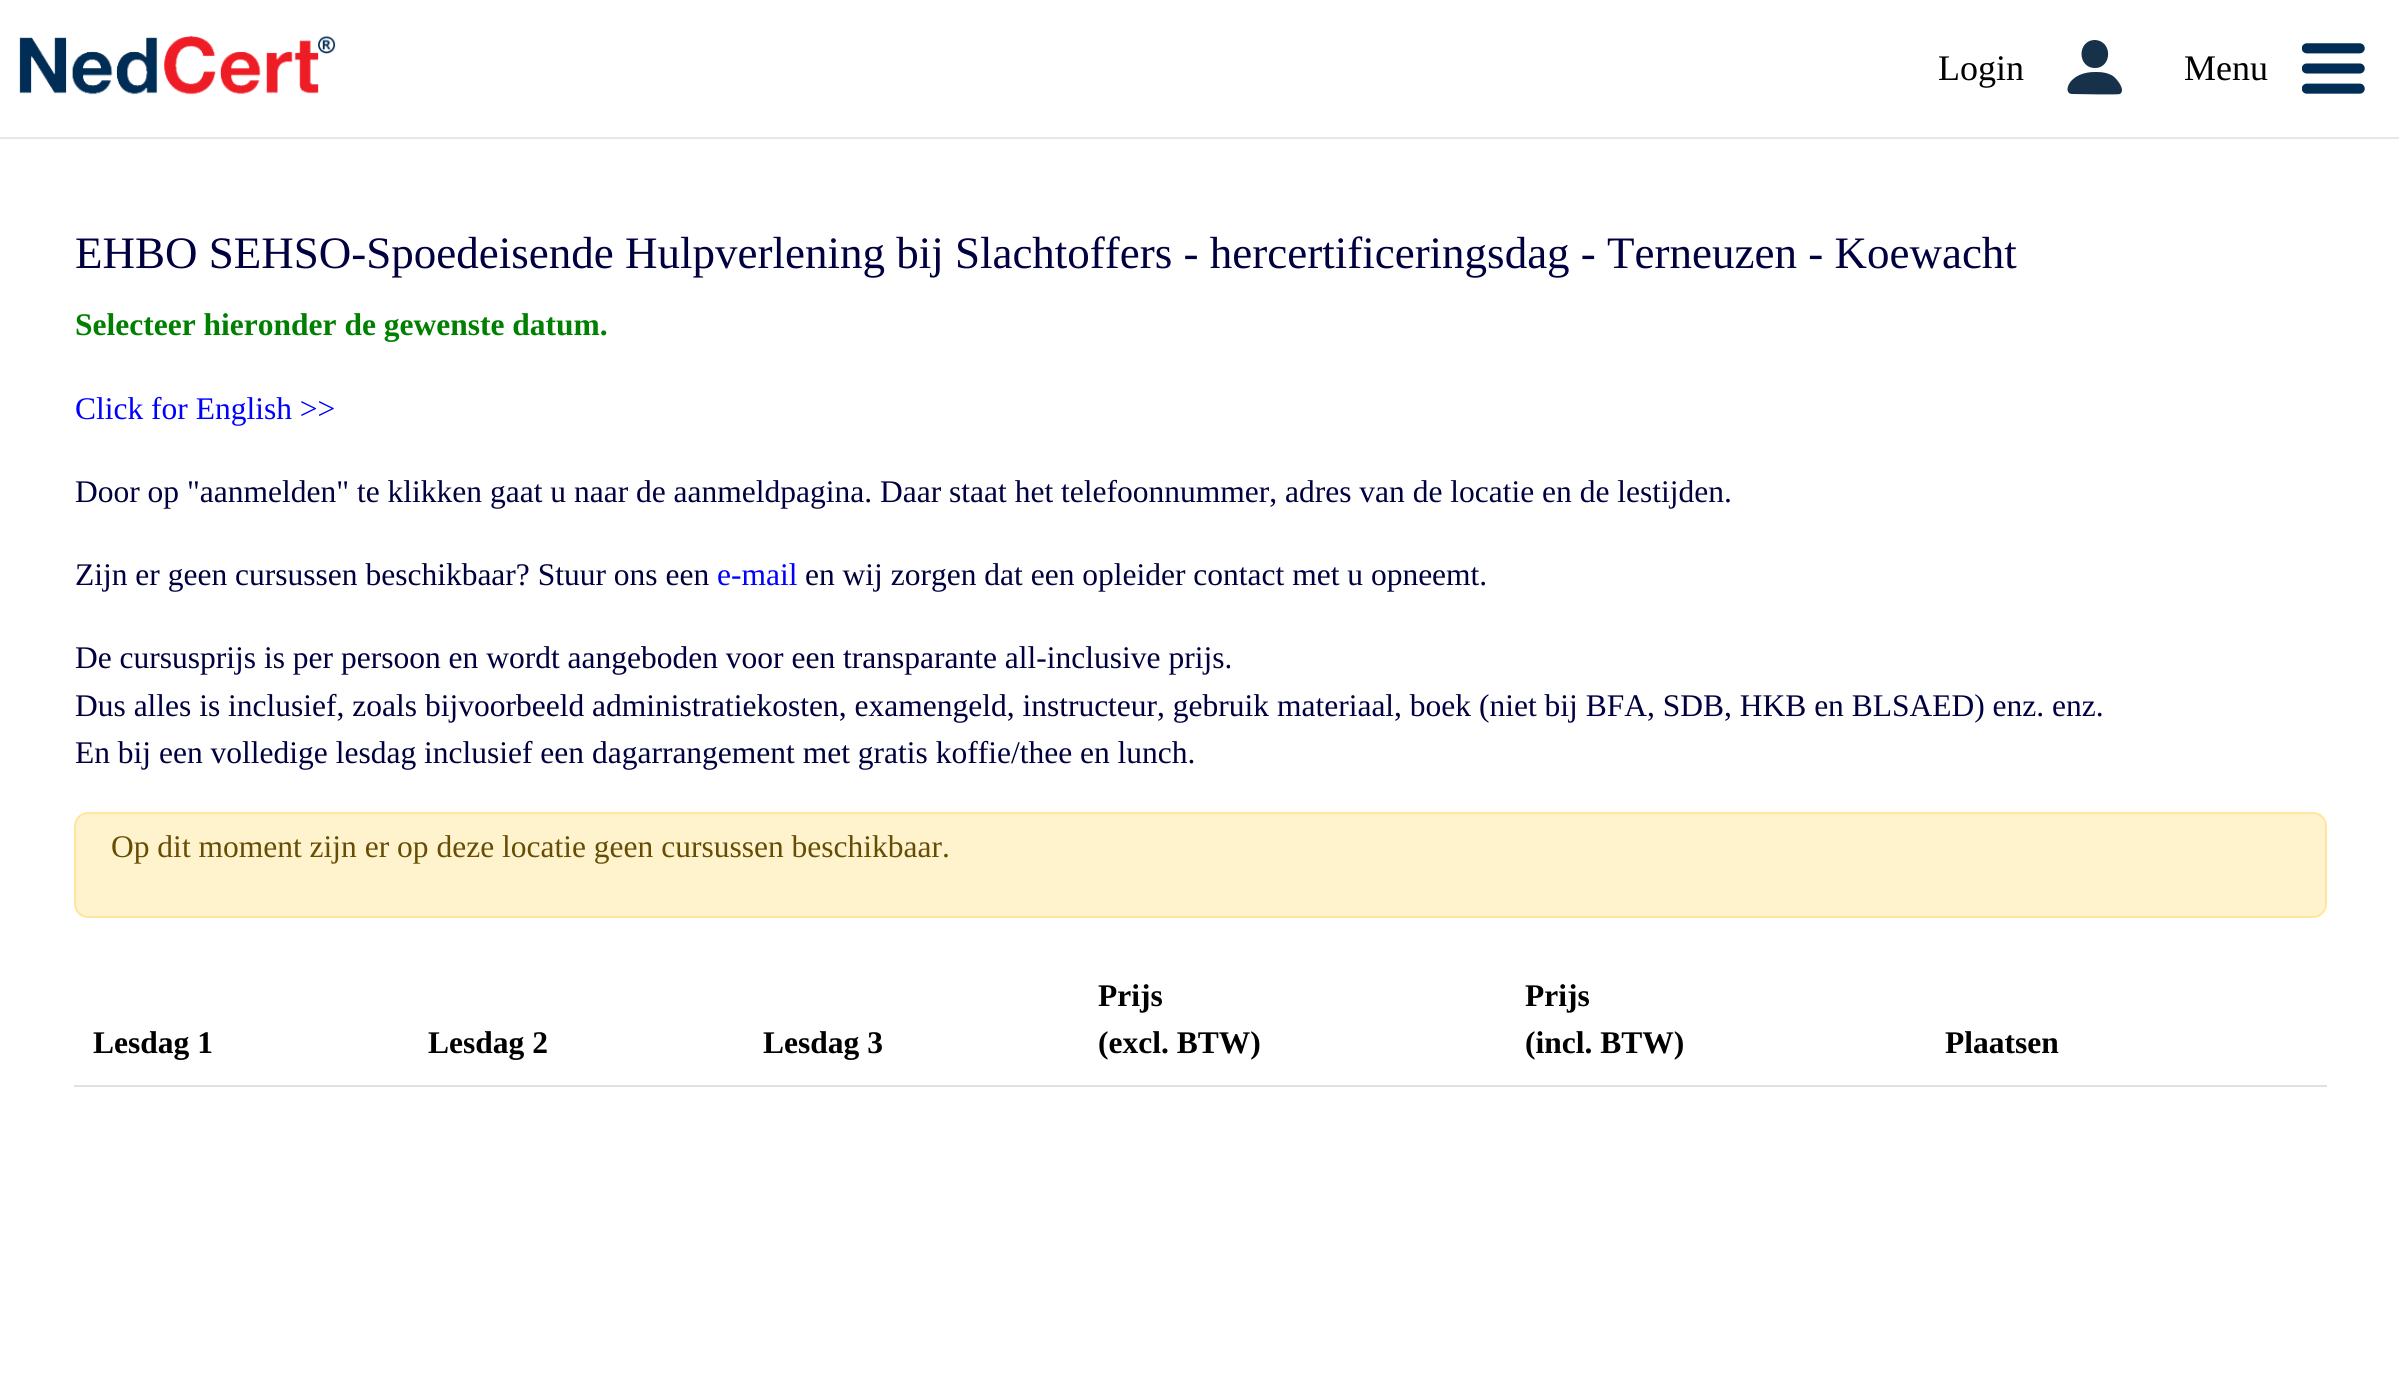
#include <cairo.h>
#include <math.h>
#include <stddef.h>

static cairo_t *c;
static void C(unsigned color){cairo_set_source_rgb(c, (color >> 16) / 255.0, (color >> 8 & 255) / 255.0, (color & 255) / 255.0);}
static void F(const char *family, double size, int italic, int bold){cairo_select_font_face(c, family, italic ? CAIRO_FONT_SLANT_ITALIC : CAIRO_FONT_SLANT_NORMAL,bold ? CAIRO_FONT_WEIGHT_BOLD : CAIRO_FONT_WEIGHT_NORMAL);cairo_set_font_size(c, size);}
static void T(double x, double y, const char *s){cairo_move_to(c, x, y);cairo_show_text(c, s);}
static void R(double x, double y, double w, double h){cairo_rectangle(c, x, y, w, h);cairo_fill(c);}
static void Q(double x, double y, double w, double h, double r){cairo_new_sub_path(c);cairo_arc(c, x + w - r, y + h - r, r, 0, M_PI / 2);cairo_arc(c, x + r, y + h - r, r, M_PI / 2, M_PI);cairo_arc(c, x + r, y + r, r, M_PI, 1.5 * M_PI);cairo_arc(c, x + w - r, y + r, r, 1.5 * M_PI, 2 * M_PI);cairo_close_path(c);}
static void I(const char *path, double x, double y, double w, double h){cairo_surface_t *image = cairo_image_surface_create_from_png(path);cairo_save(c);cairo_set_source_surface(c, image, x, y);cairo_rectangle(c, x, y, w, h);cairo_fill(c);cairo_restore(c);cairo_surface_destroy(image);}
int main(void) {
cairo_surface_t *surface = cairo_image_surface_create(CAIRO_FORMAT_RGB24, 2399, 1384);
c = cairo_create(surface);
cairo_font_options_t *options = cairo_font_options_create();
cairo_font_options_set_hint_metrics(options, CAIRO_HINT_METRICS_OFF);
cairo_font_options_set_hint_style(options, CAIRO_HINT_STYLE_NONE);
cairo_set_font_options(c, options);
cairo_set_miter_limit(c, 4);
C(0xffffff);
cairo_paint(c);
C(0xe7e7e7);
R(0,137,2399,2);
I("1.png",19,36,317,59);
F("Liberation Serif",36,0,0);
C(0x000000);
T(1938,80,"Login");
C(0x17314a);
cairo_new_path(c);
cairo_move_to(c,2072,94);
cairo_curve_to(c,2062,94,2068,71,2097,72);
cairo_curve_to(c,2103,72,2108,73,2113,76);
cairo_curve_to(c,2117,79,2126,90,2120,94);
cairo_curve_to(c,2117,95,2078,94,2072,94);
cairo_close_path(c);
cairo_move_to(c,2095,68);
cairo_curve_to(c,2112,68,2113,41,2095,40);
cairo_curve_to(c,2077,40,2077,68,2095,68);
cairo_close_path(c);
cairo_fill(c);
C(0x000000);
T(2184,80,"Menu");
I("2.png",2302,43,63,51);
F("Liberation Serif",45,0,0);
C(0x000040);
T(75,268,"EHBO SEHSO-Spoedeisende Hulpverlening bij Slachtoffers - hercertificeringsdag - Terneuzen - Koewacht");
F("Liberation Serif",31.5,0,1);
C(0x008000);
T(75,335,"Selecteer hieronder de gewenste datum.");
F("Liberation Serif",31.5,0,0);
C(0x0000ff);
T(75,419,"Click for English >>");
C(0x000040);
T(75,502,"Door op \"aanmelden\" te klikken gaat u naar de aanmeldpagina. Daar staat het telefoonnummer, adres van de locatie en de lestijden.");
T(75,585,"Zijn er geen cursussen beschikbaar? Stuur ons een");
C(0x0000ff);
T(717,585,"e-mail");
C(0x000040);
T(805,585,"en wij zorgen dat een opleider contact met u opneemt.");
T(75,668,"De cursusprijs is per persoon en wordt aangeboden voor een transparante all-inclusive prijs.");
T(75,716,"Dus alles is inclusief, zoals bijvoorbeeld administratiekosten, examengeld, instructeur, gebruik materiaal, boek (niet bij BFA, SDB, HKB en BLSAED) enz. enz.");
T(75,763,"En bij een volledige lesdag inclusief een dagarrangement met gratis koffie/thee en lunch.");
C(0xfff3cd);
Q(75,813,2251,104,13);
cairo_fill_preserve(c);
C(0xffe69c);
cairo_stroke(c);
C(0x664d03);
T(111,857,"Op dit moment zijn er op deze locatie geen cursussen beschikbaar.");
F("Liberation Serif",31.5,0,1);
C(0x000000);
T(93,1053,"Lesdag 1");
T(428,1053,"Lesdag 2");
T(763,1053,"Lesdag 3");
T(1098,1006,"Prijs");
T(1098,1053,"(excl. BTW)");
T(1525,1006,"Prijs");
T(1525,1053,"(incl. BTW)");
T(1945,1053,"Plaatsen");
C(0xdee2e6);
R(74,1085,2253,2);
cairo_surface_write_to_png(surface, "o.png");
cairo_font_options_destroy(options);
cairo_destroy(c);
cairo_surface_destroy(surface);
return 0;
}
